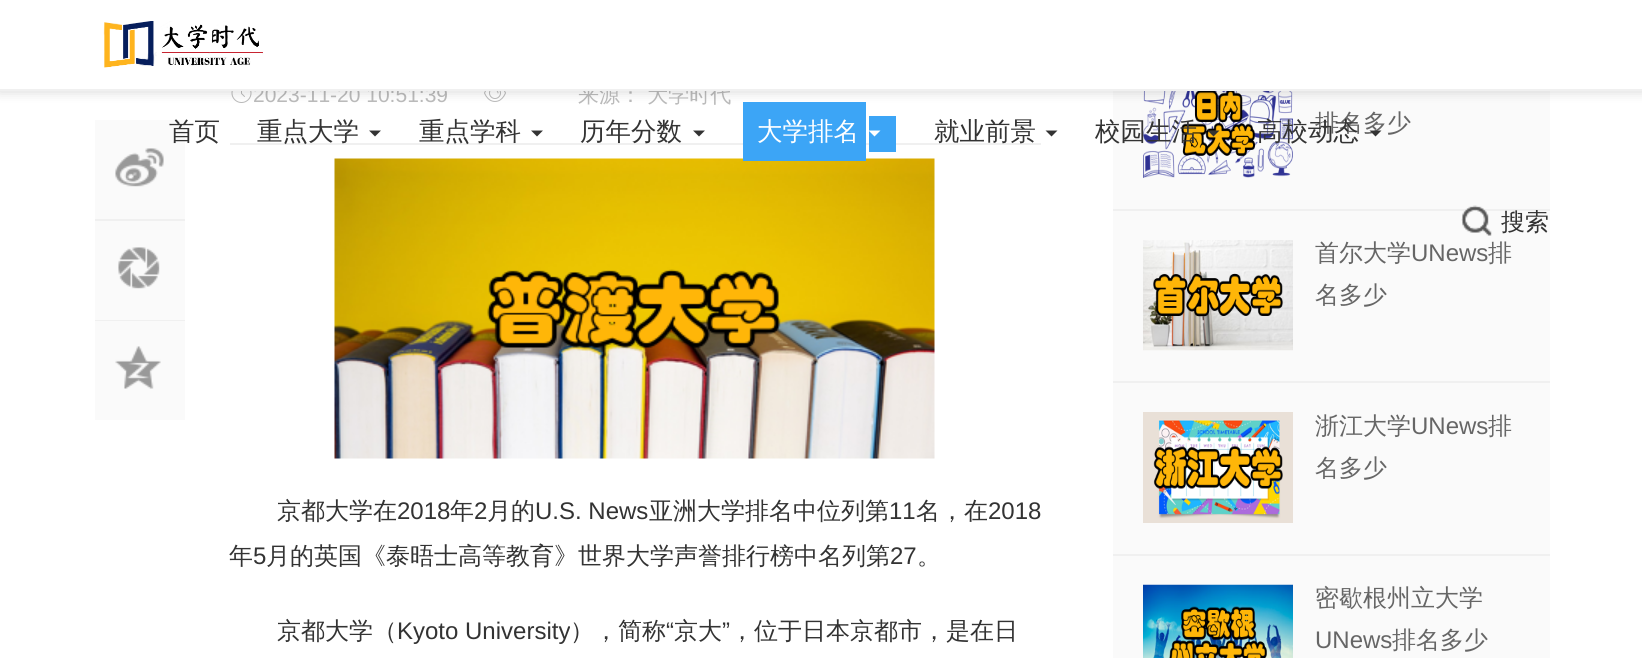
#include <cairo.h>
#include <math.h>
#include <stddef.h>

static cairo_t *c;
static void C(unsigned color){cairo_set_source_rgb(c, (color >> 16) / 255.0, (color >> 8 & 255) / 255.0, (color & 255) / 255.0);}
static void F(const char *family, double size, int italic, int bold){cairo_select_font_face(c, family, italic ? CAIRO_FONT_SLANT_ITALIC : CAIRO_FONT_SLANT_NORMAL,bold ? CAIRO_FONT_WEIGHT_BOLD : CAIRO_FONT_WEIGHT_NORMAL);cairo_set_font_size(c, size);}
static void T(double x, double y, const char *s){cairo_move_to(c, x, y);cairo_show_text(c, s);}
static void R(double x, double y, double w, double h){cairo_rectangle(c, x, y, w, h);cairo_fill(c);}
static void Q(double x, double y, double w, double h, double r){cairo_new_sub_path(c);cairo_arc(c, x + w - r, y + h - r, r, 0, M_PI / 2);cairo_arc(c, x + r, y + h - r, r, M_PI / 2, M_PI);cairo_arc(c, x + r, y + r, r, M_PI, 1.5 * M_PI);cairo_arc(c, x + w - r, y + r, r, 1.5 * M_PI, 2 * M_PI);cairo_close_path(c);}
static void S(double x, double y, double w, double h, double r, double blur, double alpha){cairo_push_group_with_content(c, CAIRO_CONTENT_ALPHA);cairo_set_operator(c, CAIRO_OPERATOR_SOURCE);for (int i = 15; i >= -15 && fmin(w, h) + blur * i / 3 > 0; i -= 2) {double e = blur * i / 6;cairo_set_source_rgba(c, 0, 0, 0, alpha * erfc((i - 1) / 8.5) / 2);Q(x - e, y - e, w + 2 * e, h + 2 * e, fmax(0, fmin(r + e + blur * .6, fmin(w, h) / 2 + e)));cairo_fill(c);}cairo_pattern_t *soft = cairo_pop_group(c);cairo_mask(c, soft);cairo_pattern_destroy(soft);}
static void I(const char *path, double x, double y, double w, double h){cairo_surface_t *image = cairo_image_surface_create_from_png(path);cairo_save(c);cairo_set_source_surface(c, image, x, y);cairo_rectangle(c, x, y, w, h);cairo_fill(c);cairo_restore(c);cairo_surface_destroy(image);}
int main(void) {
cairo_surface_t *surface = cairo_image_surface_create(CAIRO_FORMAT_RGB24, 1642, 658);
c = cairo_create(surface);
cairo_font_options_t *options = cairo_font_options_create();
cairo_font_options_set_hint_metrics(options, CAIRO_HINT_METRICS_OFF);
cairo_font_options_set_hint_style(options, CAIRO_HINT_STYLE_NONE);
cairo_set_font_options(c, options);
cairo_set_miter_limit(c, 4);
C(0xffffff);
cairo_paint(c);
C(0xfafafa);
R(95,120,90,99);
C(0xf0f0f0);
R(95,219,90,2);
I("1.png",115,148,49,39);
C(0xfafafa);
R(95,221,90,99);
C(0xf0f0f0);
R(95,320,90,1);
I("2.png",118,247,42,42);
C(0xfafafa);
R(95,321,90,99);
I("3.png",115,346,46,43);
I("4.png",231,91,21,12);
F("Liberation Sans",21,0,0);
C(0xbbbbbb);
T(253,102,"2023-11-20 10:51:39");
I("5.png",484,91,22,11);
F("WenQuanYi Zen Hei Medium",21,0,0);
T(578,102,"来源： 大学时代");
C(0xf0f0f0);
R(230,143,811,2);
I("6.png",334,158,601,301);
F("WenQuanYi Zen Hei Medium",24,0,0);
C(0x333333);
T(277,519,"京都大学在");
F("Liberation Sans",24,0,0);
T(397,519,"2018");
F("WenQuanYi Zen Hei Medium",24,0,0);
T(450,519,"年");
F("Liberation Sans",24,0,0);
T(474,519,"2");
F("WenQuanYi Zen Hei Medium",24,0,0);
T(487,519,"月的");
F("Liberation Sans",24,0,0);
T(535,519,"U.S. News");
F("WenQuanYi Zen Hei Medium",24,0,0);
T(649,519,"亚洲大学排名中位列第");
F("Liberation Sans",24,0,0);
T(889,519,"11");
F("WenQuanYi Zen Hei Medium",24,0,0);
T(916,519,"名，在");
F("Liberation Sans",24,0,0);
T(988,519,"2018");
F("WenQuanYi Zen Hei Medium",24,0,0);
T(229,564,"年");
F("Liberation Sans",24,0,0);
T(253,564,"5");
F("WenQuanYi Zen Hei Medium",24,0,0);
T(266,564,"月的英国《泰晤士高等教育》世界大学声誉排行榜中名列第");
F("Liberation Sans",24,0,0);
T(890,564,"27");
F("WenQuanYi Zen Hei Medium",24,0,0);
T(917,564,"。");
T(277,639,"京都大学（");
F("Liberation Sans",24,0,0);
T(397,639,"Kyoto University");
F("WenQuanYi Zen Hei Medium",24,0,0);
T(570,639,"），简称");
F("Liberation Sans",24,0,0);
T(666,639,"“");
F("WenQuanYi Zen Hei Medium",24,0,0);
T(674,639,"京大");
F("Liberation Sans",24,0,0);
T(722,639,"”");
F("WenQuanYi Zen Hei Medium",24,0,0);
T(730,639,"，位于日本京都市，是在日");
C(0xfafafa);
R(1113,91,437,567);
C(0xf0f0f0);
R(1113,209,437,2);
I("7.png",1143,91,150,87);
C(0x666666);
T(1315,131,"排名多少");
C(0xf0f0f0);
R(1113,381,437,2);
I("8.png",1143,240,150,111);
C(0x666666);
T(1315,261,"首尔大学");
F("Liberation Sans",24,0,0);
T(1411,261,"UNews");
F("WenQuanYi Zen Hei Medium",24,0,0);
T(1488,261,"排");
T(1315,303,"名多少");
C(0xf0f0f0);
R(1113,554,437,2);
I("9.png",1143,412,150,111);
C(0x666666);
T(1315,434,"浙江大学");
F("Liberation Sans",24,0,0);
T(1411,434,"UNews");
F("WenQuanYi Zen Hei Medium",24,0,0);
T(1488,434,"排");
T(1315,476,"名多少");
I("10.png",1143,584,150,74);
T(1315,606,"密歇根州立大学");
F("Liberation Sans",24,0,0);
T(1315,648,"UNews");
F("WenQuanYi Zen Hei Medium",24,0,0);
T(1392,648,"排名多少");
C(0x000000);
S(-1,-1,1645,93,0,6,.15);
C(0xffffff);
R(0,0,1642,89);
C(0xf0f0f0);
R(0,89,1642,2);
I("11.png",103,21,160,47);
F("WenQuanYi Zen Hei Medium",25.5,0,0);
C(0x333333);
T(169,140,"首页");
T(257,140,"重点大学");
cairo_new_path(c);
cairo_move_to(c,369,130.5);
cairo_line_to(c,381,130.5);
cairo_line_to(c,375,136.5);
cairo_close_path(c);
cairo_fill(c);
T(419,140,"重点学科");
cairo_new_path(c);
cairo_move_to(c,531,130.5);
cairo_line_to(c,543,130.5);
cairo_line_to(c,537,136.5);
cairo_close_path(c);
cairo_fill(c);
T(580,140,"历年分数");
cairo_new_path(c);
cairo_move_to(c,693,130.5);
cairo_line_to(c,705,130.5);
cairo_line_to(c,699,136.5);
cairo_close_path(c);
cairo_fill(c);
C(0x3ca5f6);
R(743,102,123,59);
R(869,116,27,36);
C(0xffffff);
T(757,140,"大学排名");
cairo_new_path(c);
cairo_move_to(c,868.5,130.5);
cairo_line_to(c,880.5,130.5);
cairo_line_to(c,874.5,136.5);
cairo_close_path(c);
cairo_fill(c);
C(0x333333);
T(934,140,"就业前景");
cairo_new_path(c);
cairo_move_to(c,1045.5,130.5);
cairo_line_to(c,1057.5,130.5);
cairo_line_to(c,1051.5,136.5);
cairo_close_path(c);
cairo_fill(c);
T(1095,140,"校园生活");
cairo_new_path(c);
cairo_move_to(c,1207.5,130.5);
cairo_line_to(c,1219.5,130.5);
cairo_line_to(c,1213.5,136.5);
cairo_close_path(c);
cairo_fill(c);
T(1257,140,"高校动态");
cairo_new_path(c);
cairo_move_to(c,1369.5,130.5);
cairo_line_to(c,1381.5,130.5);
cairo_line_to(c,1375.5,136.5);
cairo_close_path(c);
cairo_fill(c);
I("12.png",1461,205,31,31);
F("WenQuanYi Zen Hei Medium",24,0,0);
T(1501,230,"搜索");
cairo_surface_write_to_png(surface, "o.png");
cairo_font_options_destroy(options);
cairo_destroy(c);
cairo_surface_destroy(surface);
return 0;
}
